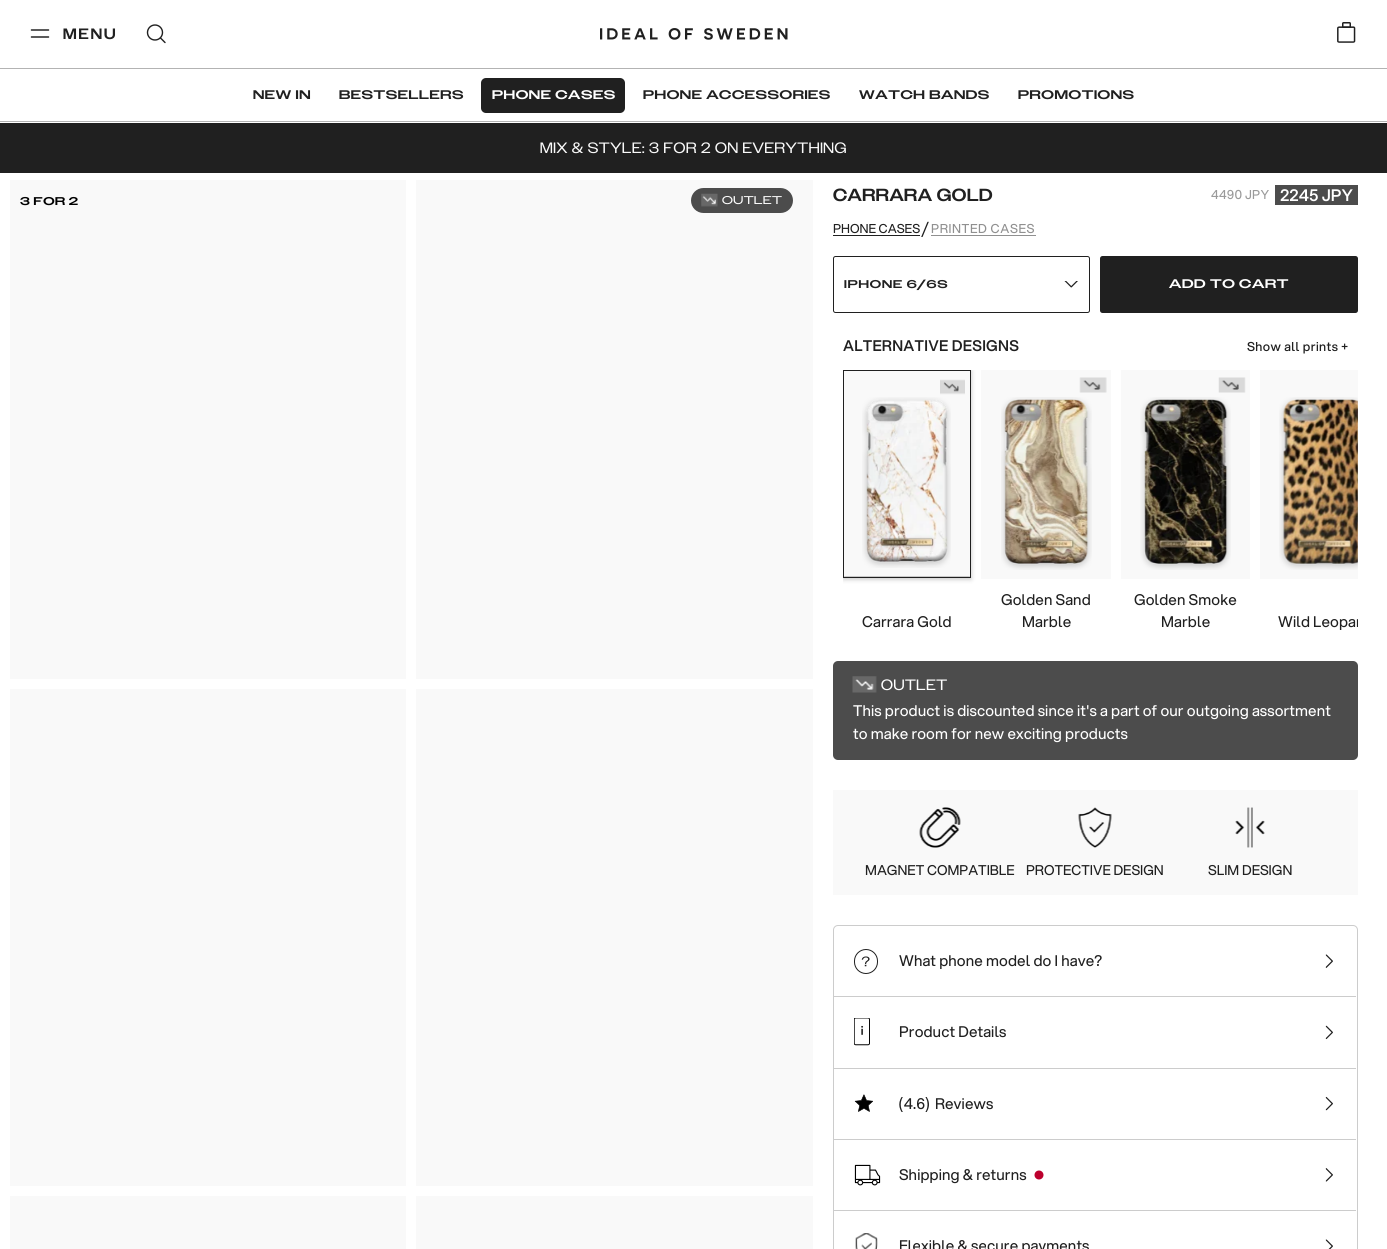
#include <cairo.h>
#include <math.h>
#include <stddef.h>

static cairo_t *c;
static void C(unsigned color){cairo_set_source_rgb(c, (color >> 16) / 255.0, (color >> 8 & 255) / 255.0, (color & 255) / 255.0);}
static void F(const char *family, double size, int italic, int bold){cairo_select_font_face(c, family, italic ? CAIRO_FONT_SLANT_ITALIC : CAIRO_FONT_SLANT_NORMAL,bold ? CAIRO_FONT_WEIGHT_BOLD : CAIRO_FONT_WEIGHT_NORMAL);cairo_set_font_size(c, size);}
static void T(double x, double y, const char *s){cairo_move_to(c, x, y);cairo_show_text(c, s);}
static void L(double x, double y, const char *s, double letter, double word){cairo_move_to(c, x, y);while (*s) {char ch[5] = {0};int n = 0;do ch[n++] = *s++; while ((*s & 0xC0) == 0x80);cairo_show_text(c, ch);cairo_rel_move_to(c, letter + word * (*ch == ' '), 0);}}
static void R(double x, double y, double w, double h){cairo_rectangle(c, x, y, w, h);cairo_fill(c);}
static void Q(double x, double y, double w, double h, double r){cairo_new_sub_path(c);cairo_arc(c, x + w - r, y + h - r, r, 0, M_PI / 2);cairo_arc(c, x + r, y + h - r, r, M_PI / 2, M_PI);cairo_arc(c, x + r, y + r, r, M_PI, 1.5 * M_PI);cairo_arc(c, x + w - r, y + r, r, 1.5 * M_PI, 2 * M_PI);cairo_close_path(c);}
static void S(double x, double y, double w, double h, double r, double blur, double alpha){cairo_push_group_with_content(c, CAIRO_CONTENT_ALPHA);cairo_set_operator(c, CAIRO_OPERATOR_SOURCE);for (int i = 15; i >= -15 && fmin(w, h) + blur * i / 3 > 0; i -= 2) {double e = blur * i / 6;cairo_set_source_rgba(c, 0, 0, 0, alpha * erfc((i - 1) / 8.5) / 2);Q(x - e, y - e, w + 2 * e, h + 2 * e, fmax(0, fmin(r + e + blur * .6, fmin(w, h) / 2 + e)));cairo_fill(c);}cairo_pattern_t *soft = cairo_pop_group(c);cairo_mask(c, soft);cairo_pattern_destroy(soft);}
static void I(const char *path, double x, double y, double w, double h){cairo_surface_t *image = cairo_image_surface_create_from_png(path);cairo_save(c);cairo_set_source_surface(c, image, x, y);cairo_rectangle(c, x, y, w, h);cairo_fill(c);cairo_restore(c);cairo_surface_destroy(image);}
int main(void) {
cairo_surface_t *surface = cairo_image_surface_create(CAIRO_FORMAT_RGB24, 1387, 1249);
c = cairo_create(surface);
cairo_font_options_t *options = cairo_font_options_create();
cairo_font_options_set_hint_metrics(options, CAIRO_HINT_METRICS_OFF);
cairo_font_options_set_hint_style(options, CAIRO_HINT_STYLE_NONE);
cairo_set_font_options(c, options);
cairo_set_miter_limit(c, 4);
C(0xffffff);
cairo_paint(c);
cairo_new_path(c);
cairo_move_to(c,31.5,30);
cairo_line_to(c,48.5,30);
cairo_move_to(c,31.5,37);
cairo_line_to(c,48.5,37);
C(0x202020);
cairo_set_line_width(c,1.5);
cairo_set_line_cap(c,CAIRO_LINE_CAP_ROUND);
cairo_stroke(c);
F("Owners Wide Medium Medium",15,0,0);
L(63,39,"MENU",2,0);
cairo_new_path(c);
cairo_arc(c,155,32.5,7.5,0,2 * M_PI);
cairo_set_line_width(c,1.4);
cairo_set_line_cap(c,CAIRO_LINE_CAP_BUTT);
cairo_stroke(c);
cairo_new_path(c);
cairo_move_to(c,160.5,38);
cairo_line_to(c,165,42.5);
cairo_set_line_cap(c,CAIRO_LINE_CAP_ROUND);
cairo_stroke(c);
I("1.png",600,28,188,12);
I("2.png",1337,22,19,21);
C(0xb3b3b3);
R(0,68,1387,1);
R(0,121,1387,1);
F("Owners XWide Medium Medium",12.5,0,0);
C(0x202020);
L(253,99,"NEW IN",.6,0);
L(339,99,"BESTSELLERS",.6,0);
Q(481,78,144,35,5);
cairo_fill(c);
C(0xffffff);
L(492,99,"PHONE CASES",.6,0);
C(0x202020);
L(643,99,"PHONE ACCESSORIES",.6,0);
L(859,99,"WATCH BANDS",.6,0);
L(1018,99,"PROMOTIONS",.6,0);
R(0,123,1387,50);
F("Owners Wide",15,0,0);
C(0xf9f9f9);
L(540,153,"MIX & STYLE: 3 FOR 2 ON EVERYTHING",.6,0);
R(10,180,396,499);
R(416,180,397,499);
R(10,689,396,497);
R(416,689,397,497);
R(10,1196,396,53);
R(416,1196,397,53);
F("Owners XWide Medium Medium",11.25,0,0);
C(0x000000);
L(20,205,"3 FOR 2",.5,0);
C(0x4c4c4c);
Q(691,188,102,25,12.5);
cairo_fill(c);
I("3.png",701,193,17,14);
F("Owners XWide",11.25,0,0);
C(0xffffff);
L(722,204,"OUTLET",.5,0);
F("Owners Wide Medium Medium",17.5,0,0);
C(0x202020);
L(833,201,"CARRARA GOLD",.5,0);
F("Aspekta",12.5,0,0);
C(0x9a9a9a);
L(1211,199,"4490 JPY",.25,0);
C(0x4c4c4c);
R(1275,185,83,20);
F("Aspekta Medium",16.25,0,0);
C(0xffffff);
T(1280,201,"2245 JPY");
F("Aspekta",12.5,0,0);
C(0x202020);
T(833,233,"PHONE CASES");
R(833,235,87,1);
F("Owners",16.25,0,0);
T(922,234,"/");
F("Aspekta",12.5,0,0);
C(0x909090);
L(931,233,"PRINTED CASES",.6,0);
R(931,235,105,1);
Q(833.5,256.5,256,56,2);
C(0x202020);
cairo_set_line_width(c,1);
cairo_set_line_cap(c,CAIRO_LINE_CAP_BUTT);
cairo_stroke(c);
F("Owners XWide Medium Medium",11.25,0,0);
L(844,288,"IPHONE 6/6S",.9,0);
I("4.png",1064,281,14,7);
Q(1100,256,258,57,2.5);
cairo_fill(c);
F("Owners XWide Medium Medium",12.5,0,0);
C(0xffffff);
L(1169,288,"ADD TO CART",.6,0);
F("Aspekta Medium",15,0,0);
C(0x202020);
L(843,351,"ALTERNATIVE DESIGNS",.25,0);
F("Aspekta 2 Medium",12.5,0,0);
L(1247,351,"Show all prints +",.4,0);
cairo_save(c);
cairo_rectangle(c,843,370,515,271);
cairo_clip(c);
C(0x000000);
S(843,371,128,208,0,2.5,.25);
cairo_restore(c);
cairo_rectangle(c,843.5,370.5,127,207);
cairo_stroke(c);
C(0xf9f9f9);
R(844,371,126,205);
I("5.png",940,379,25,16);
I("6.png",862,397,89,171);
F("Aspekta",15,0,0);
C(0x202020);
L(862,627,"Carrara Gold",.12,0);
C(0xf9f9f9);
R(981,370,130,209);
I("7.png",1079,377,28,16);
I("8.png",1001,397,91,173);
C(0x202020);
L(1001,605,"Golden Sand",.12,0);
L(1022,627,"Marble",.12,0);
C(0xf9f9f9);
R(1121,370,129,209);
I("9.png",1218,377,28,16);
I("10.png",1140,397,91,173);
C(0x202020);
L(1134,605,"Golden Smoke",.12,0);
L(1161,627,"Marble",.12,0);
C(0xf9f9f9);
R(1260,370,98,209);
I("11.png",1279,397,79,173);
cairo_save(c);
cairo_rectangle(c,843,370,515,271);
cairo_clip(c);
C(0x202020);
L(1278,627,"Wild Leopar",.12,0);
cairo_restore(c);
C(0x4c4c4c);
Q(833,661,525,99,5);
cairo_fill(c);
I("12.png",852,676,25,17);
F("Owners Wide",15,0,0);
C(0xffffff);
L(881,690,"OUTLET",.6,0);
F("Aspekta",15,0,0);
L(853,716,"This product is discounted since it's a part of our outgoing assortment",.12,0);
L(853,739,"to make room for new exciting products",.12,0);
C(0xf9f9f9);
R(833,790,525,105);
I("13.png",919,807,42,41);
F("Aspekta",13.75,0,0);
C(0x202020);
T(865,875,"MAGNET COMPATIBLE");
I("14.png",1078,807,34,41);
T(1026,875,"PROTECTIVE DESIGN");
I("15.png",1235,807,30,41);
T(1208,875,"SLIM DESIGN");
Q(833.5,925.5,524,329,4.5);
C(0xcccccc);
cairo_stroke(c);
R(834,996,522,1);
I("16.png",854,949,24,25);
F("Aspekta",15,0,0);
C(0x202020);
L(899,966,"What phone model do I have?",.12,0);
I("17.png",1325,954,8,14);
C(0xcccccc);
R(834,1068,522,1);
I("18.png",854,1018,16,28);
C(0x202020);
L(899,1037,"Product Details",.12,0);
I("19.png",1325,1025,8,15);
C(0xcccccc);
R(834,1139,522,1);
I("20.png",854,1094,19,18);
C(0x202020);
L(899,1109,"(4.6)",.12,0);
L(935,1109,"Reviews",.12,0);
I("21.png",1325,1096,8,15);
C(0xcccccc);
R(834,1210,522,1);
I("22.png",854,1164,27,22);
C(0x202020);
L(899,1180,"Shipping & returns",.12,0);
I("23.png",1034,1170,10,10);
I("24.png",1325,1168,8,14);
I("25.png",855,1233,23,16);
L(899,1251,"Flexible & secure payments",.12,0);
I("26.png",1325,1239,8,10);
cairo_surface_write_to_png(surface, "o.png");
cairo_font_options_destroy(options);
cairo_destroy(c);
cairo_surface_destroy(surface);
return 0;
}
